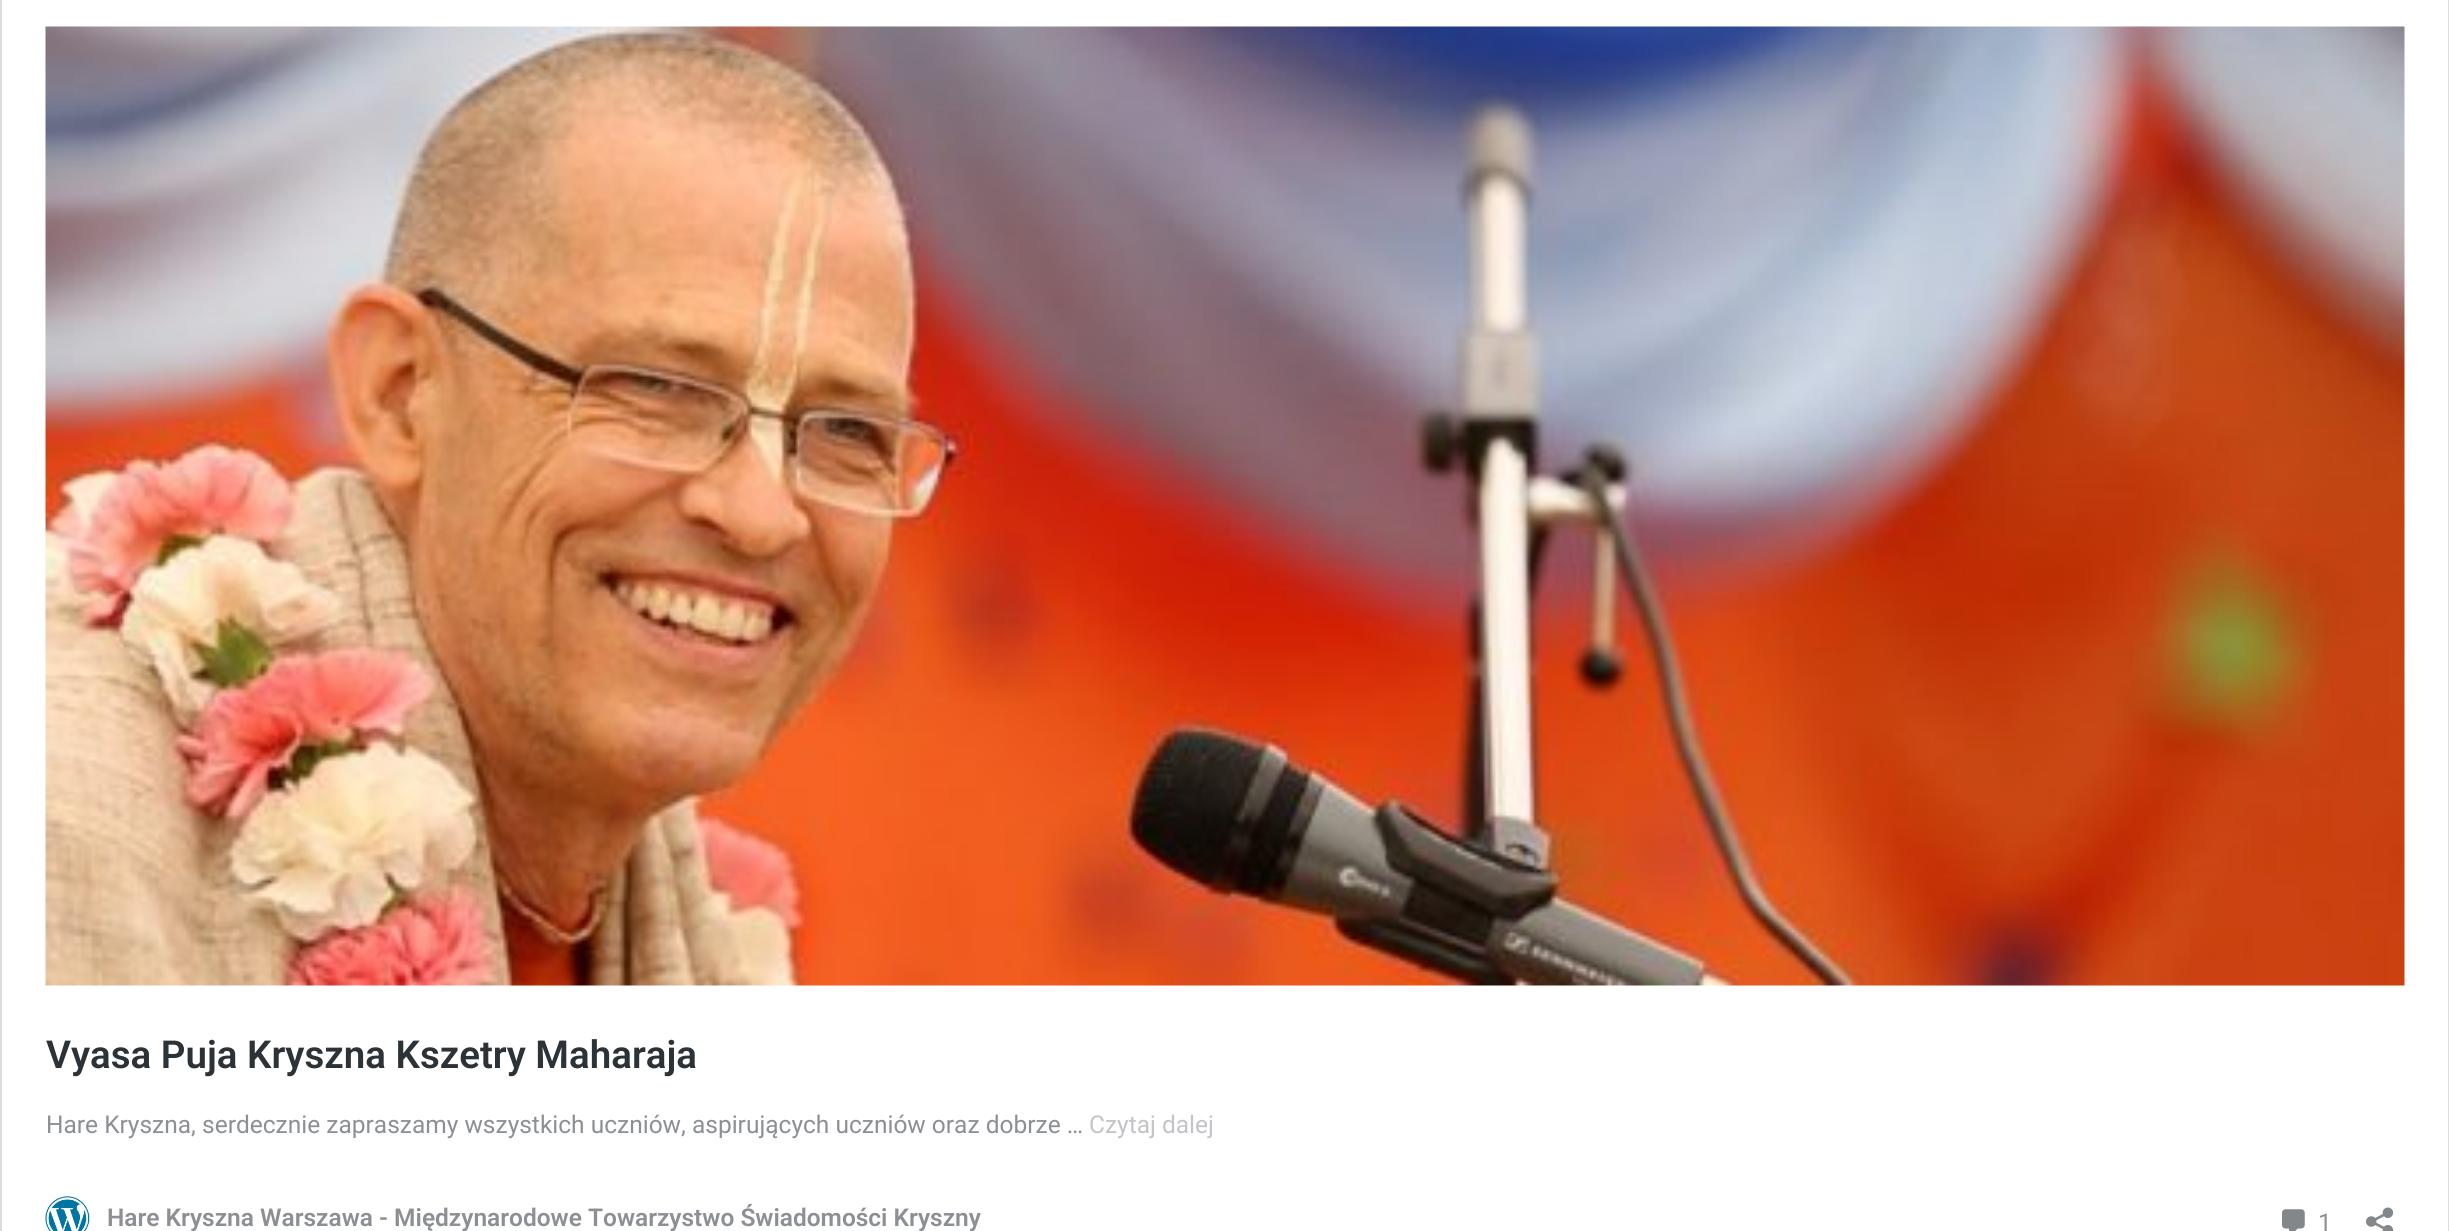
#include <cairo.h>
#include <math.h>
#include <stddef.h>

static cairo_t *c;
static void C(unsigned color){cairo_set_source_rgb(c, (color >> 16) / 255.0, (color >> 8 & 255) / 255.0, (color & 255) / 255.0);}
static void F(const char *family, double size, int italic, int bold){cairo_select_font_face(c, family, italic ? CAIRO_FONT_SLANT_ITALIC : CAIRO_FONT_SLANT_NORMAL,bold ? CAIRO_FONT_WEIGHT_BOLD : CAIRO_FONT_WEIGHT_NORMAL);cairo_set_font_size(c, size);}
static void T(double x, double y, const char *s){cairo_move_to(c, x, y);cairo_show_text(c, s);}
static void I(const char *path, double x, double y, double w, double h){cairo_surface_t *image = cairo_image_surface_create_from_png(path);cairo_save(c);cairo_set_source_surface(c, image, x, y);cairo_rectangle(c, x, y, w, h);cairo_fill(c);cairo_restore(c);cairo_surface_destroy(image);}
int main(void) {
cairo_surface_t *surface = cairo_image_surface_create(CAIRO_FORMAT_RGB24, 2449, 1231);
c = cairo_create(surface);
cairo_font_options_t *options = cairo_font_options_create();
cairo_font_options_set_hint_metrics(options, CAIRO_HINT_METRICS_OFF);
cairo_font_options_set_hint_style(options, CAIRO_HINT_STYLE_NONE);
cairo_set_font_options(c, options);
cairo_set_miter_limit(c, 4);
C(0xffffff);
cairo_paint(c);
cairo_rectangle(c,1,-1,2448,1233);
C(0xdcdcde);
cairo_stroke(c);
I("1.png",45,26,2360,960);
F("Roboto SemiBold",38.5,0,0);
C(0x2c3338);
T(46,1068,"Vyasa Puja Kryszna Kszetry Maharaja");
F("Roboto",24.5,0,0);
C(0x8c8f94);
T(46,1133,"Hare Kryszna, serdecznie zapraszamy wszystkich uczniów, aspirujących uczniów oraz dobrze …");
C(0xc3c4c7);
T(1089,1133,"Czytaj dalej");
I("2.png",45,1196,45,35);
F("Roboto SemiBold",24.5,0,0);
C(0x8c8f94);
T(107,1226,"Hare Kryszna Warszawa - Międzynarodowe Towarzystwo Świadomości Kryszny");
I("3.png",2282,1209,23,22);
F("Roboto",24.5,0,0);
T(2318,1231,"1");
I("4.png",2366,1207,28,24);
cairo_surface_write_to_png(surface, "o.png");
cairo_font_options_destroy(options);
cairo_destroy(c);
cairo_surface_destroy(surface);
return 0;
}
